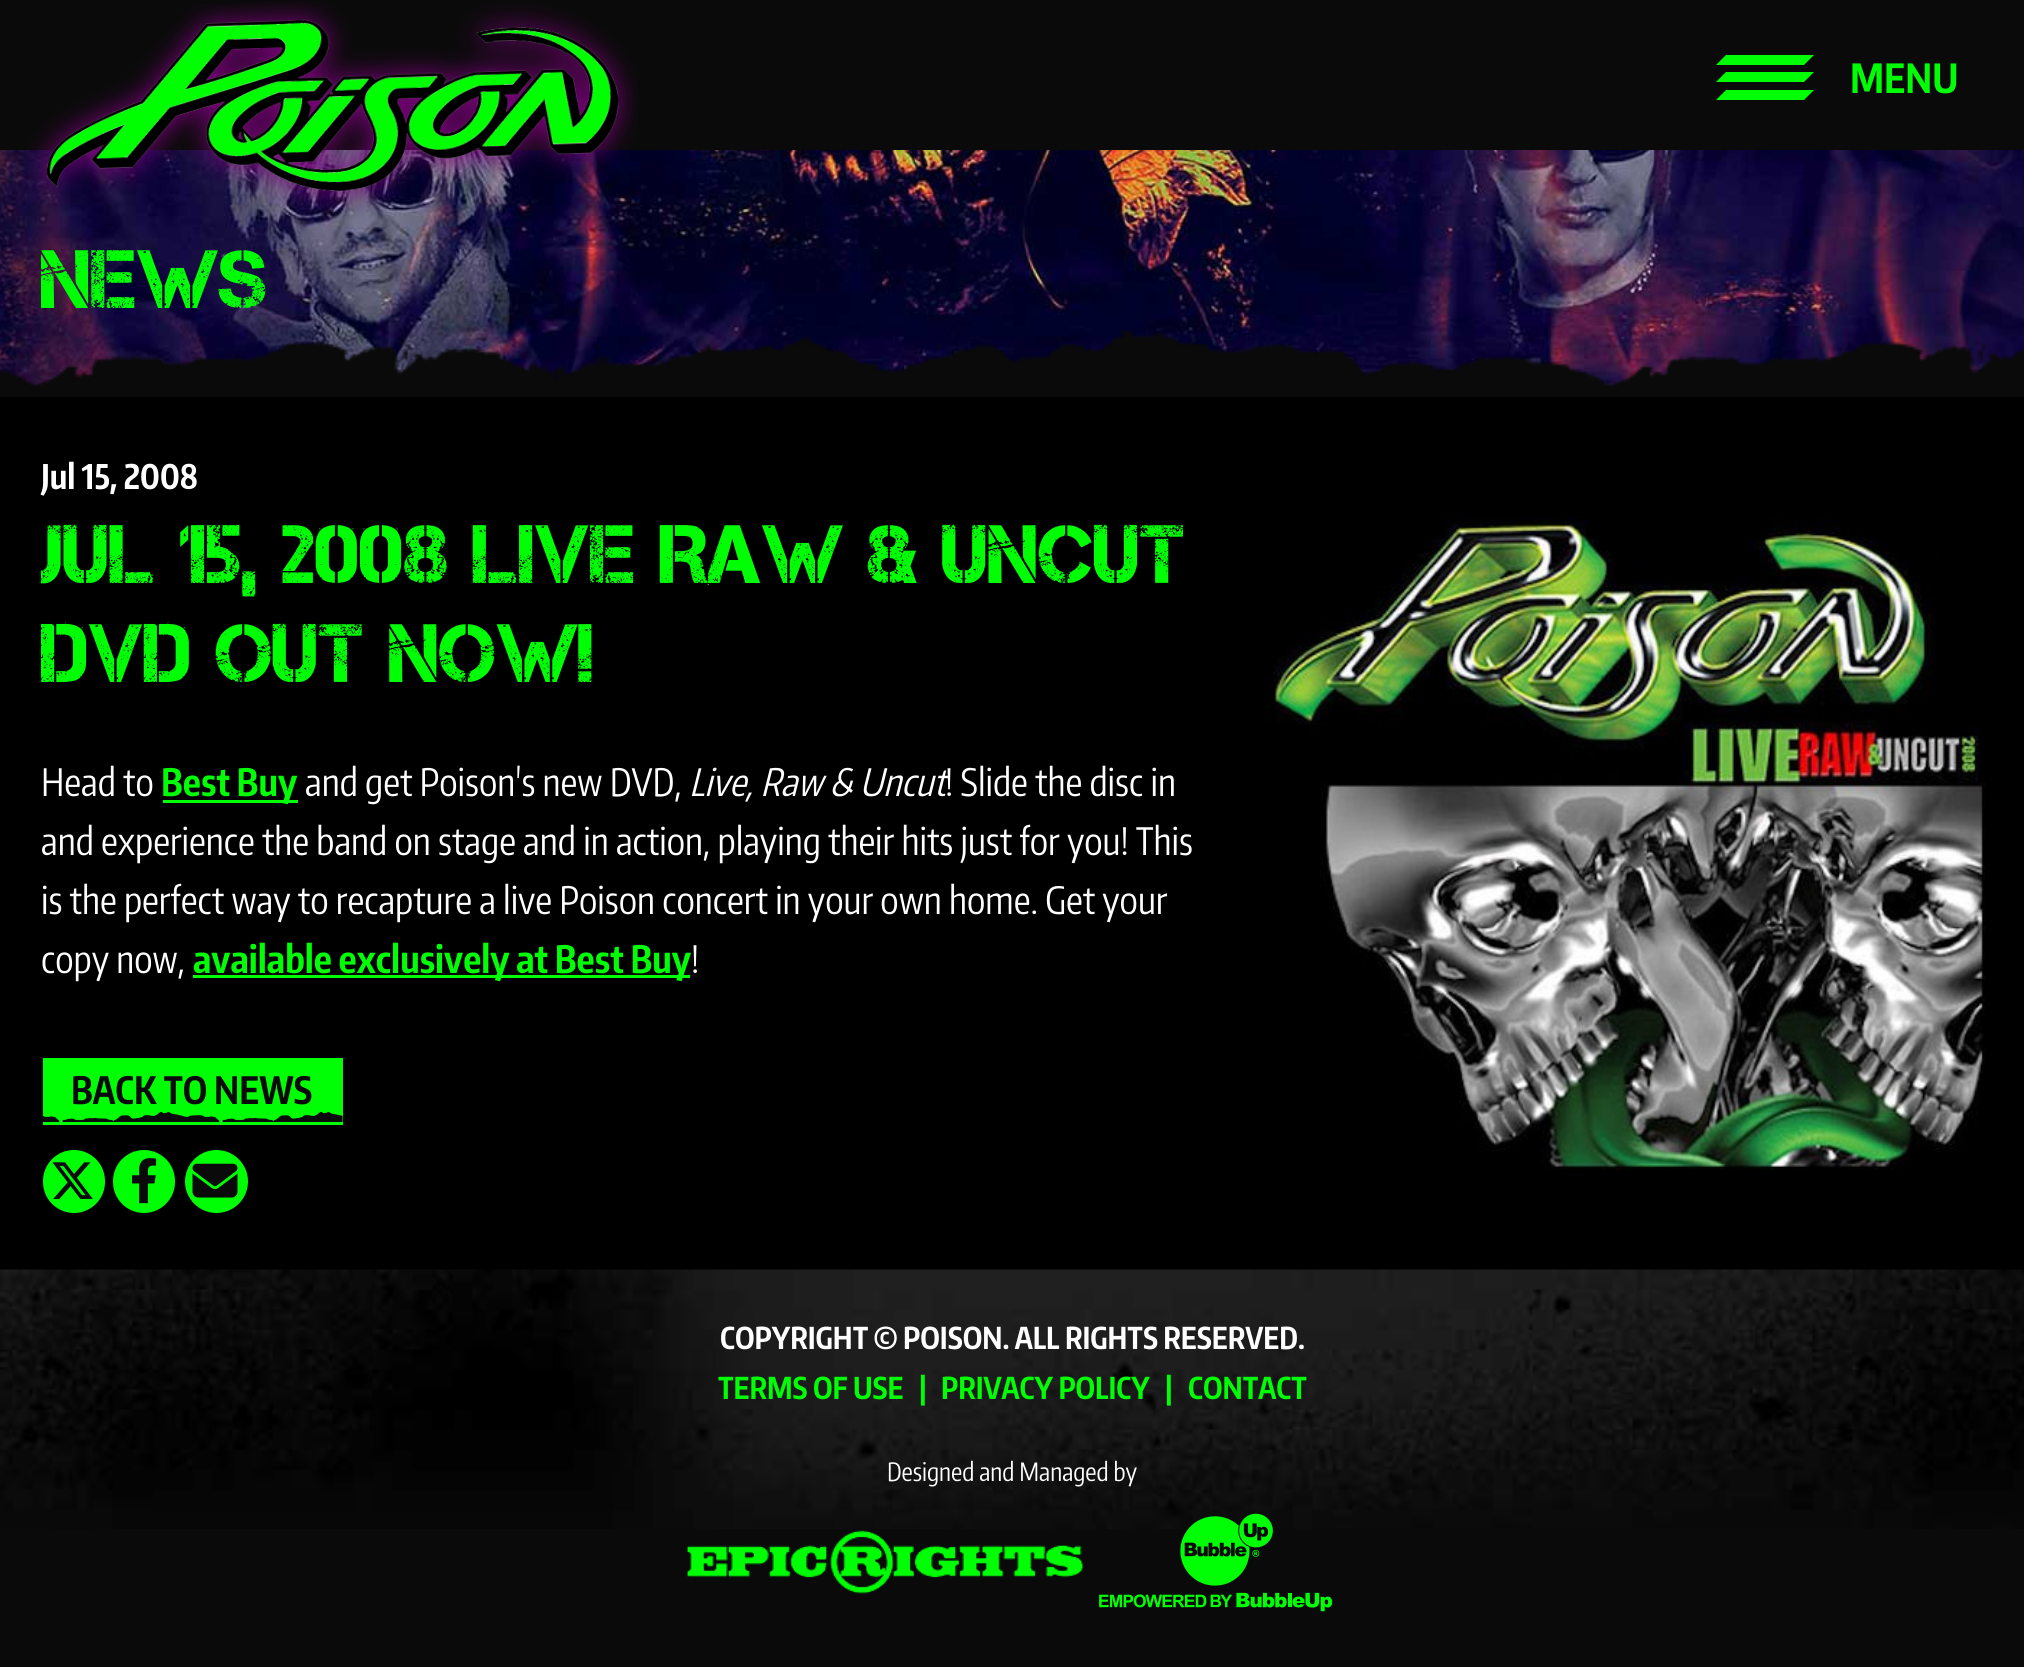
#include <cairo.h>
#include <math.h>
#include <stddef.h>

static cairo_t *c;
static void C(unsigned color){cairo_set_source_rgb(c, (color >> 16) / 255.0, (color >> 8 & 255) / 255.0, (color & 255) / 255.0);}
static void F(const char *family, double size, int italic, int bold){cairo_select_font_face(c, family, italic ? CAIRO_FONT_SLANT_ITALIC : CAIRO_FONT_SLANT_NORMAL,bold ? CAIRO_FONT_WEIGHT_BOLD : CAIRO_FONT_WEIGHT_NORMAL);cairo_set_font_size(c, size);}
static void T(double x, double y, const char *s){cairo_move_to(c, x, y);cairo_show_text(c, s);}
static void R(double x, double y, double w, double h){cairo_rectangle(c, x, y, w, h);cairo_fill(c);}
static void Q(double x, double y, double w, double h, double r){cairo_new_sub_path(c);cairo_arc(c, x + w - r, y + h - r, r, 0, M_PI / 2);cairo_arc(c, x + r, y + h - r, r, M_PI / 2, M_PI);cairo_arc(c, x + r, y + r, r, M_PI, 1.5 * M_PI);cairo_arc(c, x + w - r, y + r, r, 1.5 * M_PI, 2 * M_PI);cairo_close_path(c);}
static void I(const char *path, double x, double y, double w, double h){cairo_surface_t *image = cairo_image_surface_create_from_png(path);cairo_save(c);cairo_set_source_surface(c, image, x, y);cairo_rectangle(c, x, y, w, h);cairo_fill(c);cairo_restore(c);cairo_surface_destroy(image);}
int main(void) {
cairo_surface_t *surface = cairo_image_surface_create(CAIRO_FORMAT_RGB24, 2024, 1667);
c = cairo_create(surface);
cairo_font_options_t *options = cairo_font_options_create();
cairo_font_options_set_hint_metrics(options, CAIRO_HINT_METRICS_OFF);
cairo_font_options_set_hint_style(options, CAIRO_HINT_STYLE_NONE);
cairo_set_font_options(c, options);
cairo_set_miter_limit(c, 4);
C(0x0a0a0a);
cairo_paint(c);
C(0x000000);
R(0,397,2024,873);
I("2.png",0,150,2024,238);
I("1.png",27,1,611,212);
C(0x00fe04);
cairo_new_path(c);
cairo_move_to(c,1726,55);
cairo_line_to(c,1814,55);
cairo_line_to(c,1804,65);
cairo_line_to(c,1716,65);
cairo_close_path(c);
cairo_fill(c);
cairo_new_path(c);
cairo_move_to(c,1726,72);
cairo_line_to(c,1814,72);
cairo_line_to(c,1804,82);
cairo_line_to(c,1716,82);
cairo_close_path(c);
cairo_fill(c);
F("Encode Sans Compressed",40,0,1);
T(1850,93,"MENU");
cairo_new_path(c);
cairo_move_to(c,1726,90);
cairo_line_to(c,1814,90);
cairo_line_to(c,1804,100);
cairo_line_to(c,1716,100);
cairo_close_path(c);
cairo_fill(c);
F("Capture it",82.5,0,0);
T(41,308,"NEWS");
I("3.png",0,329,2024,68);
F("Encode Sans Compressed",33.75,0,1);
C(0xffffff);
T(41,489,"Jul 15, 2008");
F("Capture it",82.5,0,0);
C(0x00fe04);
T(41,583,"JUL 15, 2008 LIVE RAW & UNCUT");
T(41,682,"DVD OUT NOW!");
I("4.png",1263,516,722,654);
F("Encode Sans Compressed",37.5,0,0);
C(0xffffff);
T(41,796,"Head to");
C(0x00fe04);
R(163,800,135,3);
F("Encode Sans Compressed",37.5,0,1);
T(161,796,"Best Buy");
F("Encode Sans Compressed",37.5,0,0);
C(0xffffff);
T(305,796,"and get Poison's new DVD,");
F("Encode Sans Compressed",37.5,1,0);
T(689,796,"Live, Raw & Uncut");
F("Encode Sans Compressed",37.5,0,0);
T(945,796,"! Slide the disc in");
T(41,855,"and experience the band on stage and in action, playing their hits just for you! This");
T(41,914,"is the perfect way to recapture a live Poison concert in your own home. Get your");
T(41,973,"copy now,");
C(0x00fe04);
R(193,975,497,3);
F("Encode Sans Compressed",37.5,0,1);
T(193,973,"available exclusively at Best Buy");
F("Encode Sans Compressed",37.5,0,0);
C(0xffffff);
T(691,973,"!");
C(0x00fe04);
R(43,1058,300,67);
I("5.png",42,1112,301,10);
F("Encode Sans Compressed",37.5,0,1);
C(0x0a0a0a);
T(71,1104,"BACK TO NEWS");
C(0x00fe04);
Q(43,1150,62,63,31);
cairo_fill(c);
I("6.png",52,1162,41,37);
Q(113,1150,62,63,31);
cairo_fill(c);
I("7.png",132,1158,25,46);
cairo_arc(c,216.5,1181.5,31.5,0,2 * M_PI);
cairo_fill(c);
I("8.png",192,1163,46,35);
I("9.png",0,1269,2024,260);
F("Encode Sans Compressed",30,0,1);
C(0xffffff);
T(720,1349,"COPYRIGHT © POISON. ALL RIGHTS RESERVED.");
C(0x00fe04);
T(718,1399,"TERMS OF USE");
T(919,1399,"|");
T(941,1399,"PRIVACY POLICY");
T(1165,1399,"|");
T(1188,1399,"CONTACT");
F("Encode Sans Compressed",25,0,0);
C(0xffffff);
T(887,1481,"Designed and Managed by");
I("10.png",687,1530,396,64);
I("11.png",1099,1513,234,99);
cairo_surface_write_to_png(surface, "o.png");
cairo_font_options_destroy(options);
cairo_destroy(c);
cairo_surface_destroy(surface);
return 0;
}
